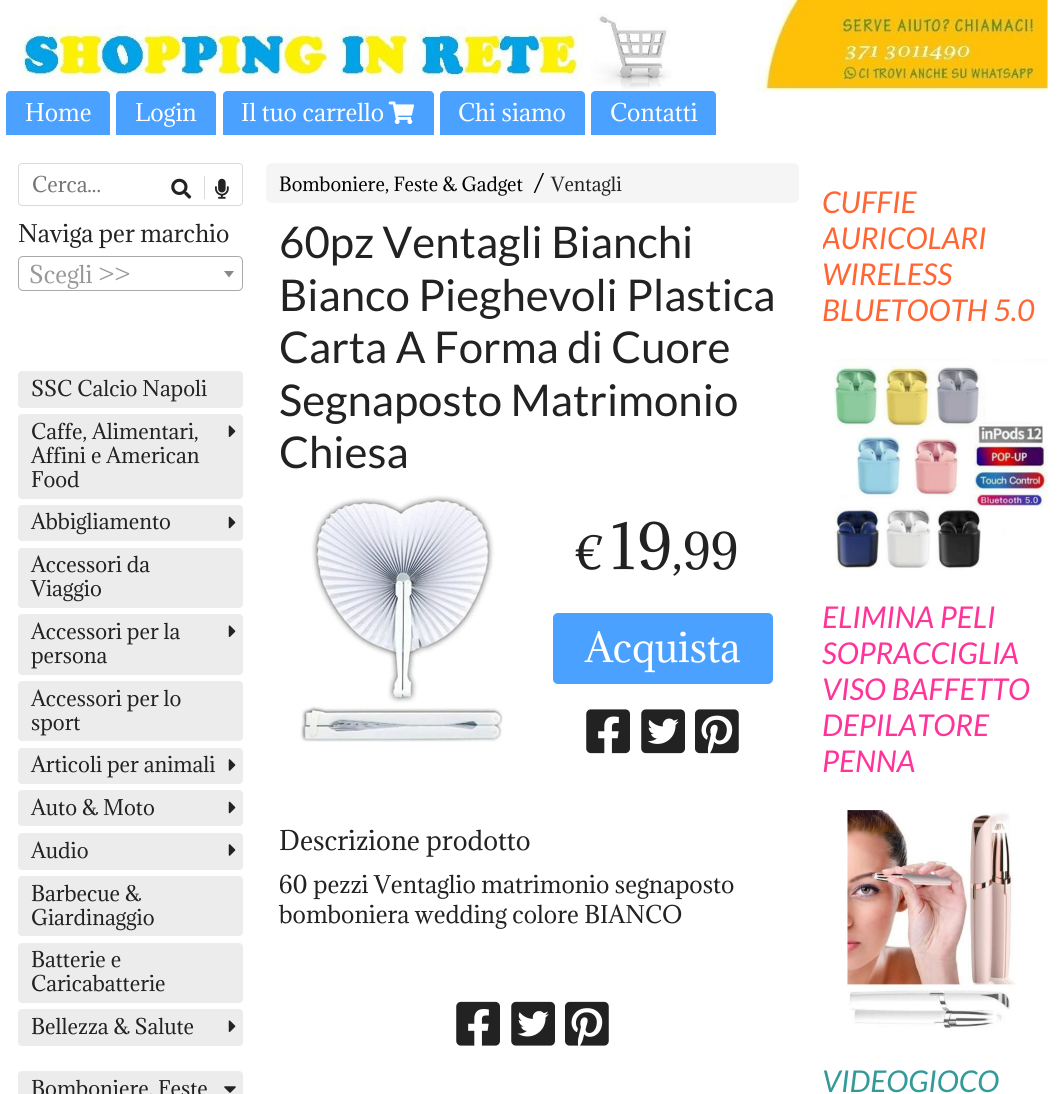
#include <cairo.h>
#include <math.h>
#include <stddef.h>

static cairo_t *c;
static void C(unsigned color){cairo_set_source_rgb(c, (color >> 16) / 255.0, (color >> 8 & 255) / 255.0, (color & 255) / 255.0);}
static void F(const char *family, double size, int italic, int bold){cairo_select_font_face(c, family, italic ? CAIRO_FONT_SLANT_ITALIC : CAIRO_FONT_SLANT_NORMAL,bold ? CAIRO_FONT_WEIGHT_BOLD : CAIRO_FONT_WEIGHT_NORMAL);cairo_set_font_size(c, size);}
static void T(double x, double y, const char *s){cairo_move_to(c, x, y);cairo_show_text(c, s);}
static void R(double x, double y, double w, double h){cairo_rectangle(c, x, y, w, h);cairo_fill(c);}
static void Q(double x, double y, double w, double h, double r){cairo_new_sub_path(c);cairo_arc(c, x + w - r, y + h - r, r, 0, M_PI / 2);cairo_arc(c, x + r, y + h - r, r, M_PI / 2, M_PI);cairo_arc(c, x + r, y + r, r, M_PI, 1.5 * M_PI);cairo_arc(c, x + w - r, y + r, r, 1.5 * M_PI, 2 * M_PI);cairo_close_path(c);}
static void I(const char *path, double x, double y, double w, double h){cairo_surface_t *image = cairo_image_surface_create_from_png(path);cairo_save(c);cairo_set_source_surface(c, image, x, y);cairo_rectangle(c, x, y, w, h);cairo_fill(c);cairo_restore(c);cairo_surface_destroy(image);}
int main(void) {
cairo_surface_t *surface = cairo_image_surface_create(CAIRO_FORMAT_RGB24, 1064, 1094);
c = cairo_create(surface);
cairo_font_options_t *options = cairo_font_options_create();
cairo_font_options_set_hint_metrics(options, CAIRO_HINT_METRICS_OFF);
cairo_font_options_set_hint_style(options, CAIRO_HINT_STYLE_NONE);
cairo_set_font_options(c, options);
cairo_set_miter_limit(c, 4);
C(0xffffff);
cairo_paint(c);
I("1.png",17,0,1031,92);
C(0x4ba1ff);
cairo_new_path(c);
cairo_move_to(c,10,91);
cairo_line_to(c,106,91);
cairo_curve_to(c,108,91,110,93,110,95);
cairo_line_to(c,110,135);
cairo_line_to(c,6,135);
cairo_line_to(c,6,95);
cairo_curve_to(c,6,93,8,91,10,91);
cairo_close_path(c);
cairo_fill(c);
F("Adamina",22.5,0,0);
C(0xffffff);
T(25,121,"Home");
C(0x4ba1ff);
cairo_new_path(c);
cairo_move_to(c,120,91);
cairo_line_to(c,212,91);
cairo_curve_to(c,214,91,216,93,216,95);
cairo_line_to(c,216,135);
cairo_line_to(c,116,135);
cairo_line_to(c,116,95);
cairo_curve_to(c,116,93,118,91,120,91);
cairo_close_path(c);
cairo_fill(c);
C(0xffffff);
T(135,121,"Login");
C(0x4ba1ff);
cairo_new_path(c);
cairo_move_to(c,227,91);
cairo_line_to(c,430,91);
cairo_curve_to(c,432,91,434,93,434,95);
cairo_line_to(c,434,135);
cairo_line_to(c,223,135);
cairo_line_to(c,223,95);
cairo_curve_to(c,223,93,225,91,227,91);
cairo_close_path(c);
cairo_fill(c);
C(0xffffff);
T(241,121,"Il tuo carrello");
I("2.png",388,101,26,23);
C(0x4ba1ff);
cairo_new_path(c);
cairo_move_to(c,444,91);
cairo_line_to(c,581,91);
cairo_curve_to(c,583,91,585,93,585,95);
cairo_line_to(c,585,135);
cairo_line_to(c,440,135);
cairo_line_to(c,440,95);
cairo_curve_to(c,440,93,442,91,444,91);
cairo_close_path(c);
cairo_fill(c);
C(0xffffff);
T(458,121,"Chi siamo");
C(0x4ba1ff);
cairo_new_path(c);
cairo_move_to(c,595,91);
cairo_line_to(c,712,91);
cairo_curve_to(c,714,91,716,93,716,95);
cairo_line_to(c,716,135);
cairo_line_to(c,591,135);
cairo_line_to(c,591,95);
cairo_curve_to(c,591,93,593,91,595,91);
cairo_close_path(c);
cairo_fill(c);
C(0xffffff);
T(610,121,"Contatti");
Q(18.5,163.5,224,42,3.5);
C(0xdadada);
cairo_set_line_width(c,1);
cairo_stroke(c);
F("Adamina",20,0,0);
C(0x757575);
T(32,192,"Cerca...");
I("3.png",171,178,21,21);
C(0xdadada);
R(204,176,1,23);
I("4.png",215,178,14,21);
F("Adamina",22.5,0,0);
C(0x222222);
T(18,242,"Naviga per marchio");
Q(18.5,256.5,224,34,4.5);
C(0xaaaaaa);
cairo_stroke(c);
C(0x999999);
T(29,283,"Scegli >>");
C(0x888888);
cairo_new_path(c);
cairo_move_to(c,224,271);
cairo_line_to(c,234,271);
cairo_line_to(c,229,277.5);
cairo_close_path(c);
cairo_fill(c);
C(0xececec);
Q(18,371,225,37,4);
cairo_fill(c);
F("Adamina",20,0,0);
C(0x222222);
T(31,396,"SSC Calcio Napoli");
C(0xececec);
Q(18,414,225,85,4);
cairo_fill(c);
C(0x222222);
T(31,439,"Caffe, Alimentari,");
I("5.png",228,425,8,12);
T(31,463,"Affini e American");
T(31,487,"Food");
C(0xececec);
Q(18,505,225,36,4);
cairo_fill(c);
C(0x222222);
T(31,529,"Abbigliamento");
I("6.png",228,516,8,13);
C(0xececec);
Q(18,548,225,60,4);
cairo_fill(c);
C(0x222222);
T(31,572,"Accessori da");
T(31,596,"Viaggio");
C(0xececec);
Q(18,614,225,61,4);
cairo_fill(c);
C(0x222222);
T(31,639,"Accessori per la");
I("5.png",228,625,8,12);
T(31,663,"persona");
C(0xececec);
Q(18,681,225,60,4);
cairo_fill(c);
C(0x222222);
T(31,706,"Accessori per lo");
T(31,730,"sport");
C(0xececec);
Q(18,748,225,36,4);
cairo_fill(c);
C(0x222222);
T(31,772,"Articoli per animali");
I("7.png",228,759,8,12);
C(0xececec);
Q(18,790,225,36,4);
cairo_fill(c);
C(0x222222);
T(31,815,"Auto & Moto");
I("6.png",228,801,8,13);
C(0xececec);
Q(18,833,225,37,4);
cairo_fill(c);
C(0x222222);
T(31,858,"Audio");
I("7.png",228,844,8,12);
C(0xececec);
Q(18,876,225,60,4);
cairo_fill(c);
C(0x222222);
T(31,901,"Barbecue &");
T(31,925,"Giardinaggio");
C(0xececec);
Q(18,943,225,60,4);
cairo_fill(c);
C(0x222222);
T(31,967,"Batterie e");
T(31,991,"Caricabatterie");
C(0xececec);
Q(18,1009,225,37,4);
cairo_fill(c);
C(0x222222);
T(31,1034,"Bellezza & Salute");
I("5.png",228,1020,8,12);
C(0xececec);
Q(18,1071,225,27,4);
cairo_fill(c);
C(0x222222);
T(31,1096,"Bomboniere, Feste");
I("8.png",224,1086,12,7);
C(0xf5f5f5);
Q(266,163,533,40,6);
cairo_fill(c);
F("Adamina",18,0,0);
C(0x000000);
T(279,191,"Bomboniere, Feste & Gadget");
F("Adamina",22.5,0,0);
T(533,191,"/");
F("Adamina",18,0,0);
C(0x222222);
T(551,191,"Ventagli");
F("Lato",43.75,0,0);
T(279,258,"60pz Ventagli Bianchi");
T(279,311,"Bianco Pieghevoli Plastica");
T(279,363,"Carta A Forma di Cuore");
T(279,416,"Segnaposto Matrimonio");
T(279,468,"Chiesa");
I("9.png",300,495,203,247);
F("Adamina",42,0,0);
T(575,569,"€");
F("Adamina",58,0,0);
T(611,569,"19");
F("Adamina",46,0,0);
T(672,569,",99");
C(0x4ba1ff);
Q(553,613,220,71,5);
cairo_fill(c);
F("Adamina",37.5,0,0);
C(0xffffff);
T(585,662,"Acquista");
I("10.png",586,709,44,45);
I("11.png",641,709,44,45);
I("12.png",695,709,44,45);
F("Adamina",25,0,0);
C(0x222222);
T(279,850,"Descrizione prodotto");
F("Adamina",22.5,0,0);
T(279,893,"60 pezzi Ventaglio matrimonio segnaposto");
T(279,923,"bomboniera wedding colore BIANCO");
I("13.png",456,1001,44,45);
I("14.png",511,1001,44,45);
I("15.png",565,1001,44,45);
F("Lato",30,1,0);
C(0xff6633);
T(822,213,"CUFFIE");
cairo_save(c);
cairo_rectangle(c,823,163,225,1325);
cairo_clip(c);
T(822,249,"AURICOLARI");
cairo_restore(c);
T(822,285,"WIRELESS");
T(822,321,"BLUETOOTH 5.0");
I("16.png",833,359,215,212);
C(0xff3399);
T(822,628,"ELIMINA PELI");
T(822,664,"SOPRACCIGLIA");
T(822,700,"VISO BAFFETTO");
T(822,736,"DEPILATORE");
T(822,772,"PENNA");
I("17.png",847,810,169,219);
C(0x339999);
T(822,1092,"VIDEOGIOCO");
cairo_surface_write_to_png(surface, "o.png");
cairo_font_options_destroy(options);
cairo_destroy(c);
cairo_surface_destroy(surface);
return 0;
}
